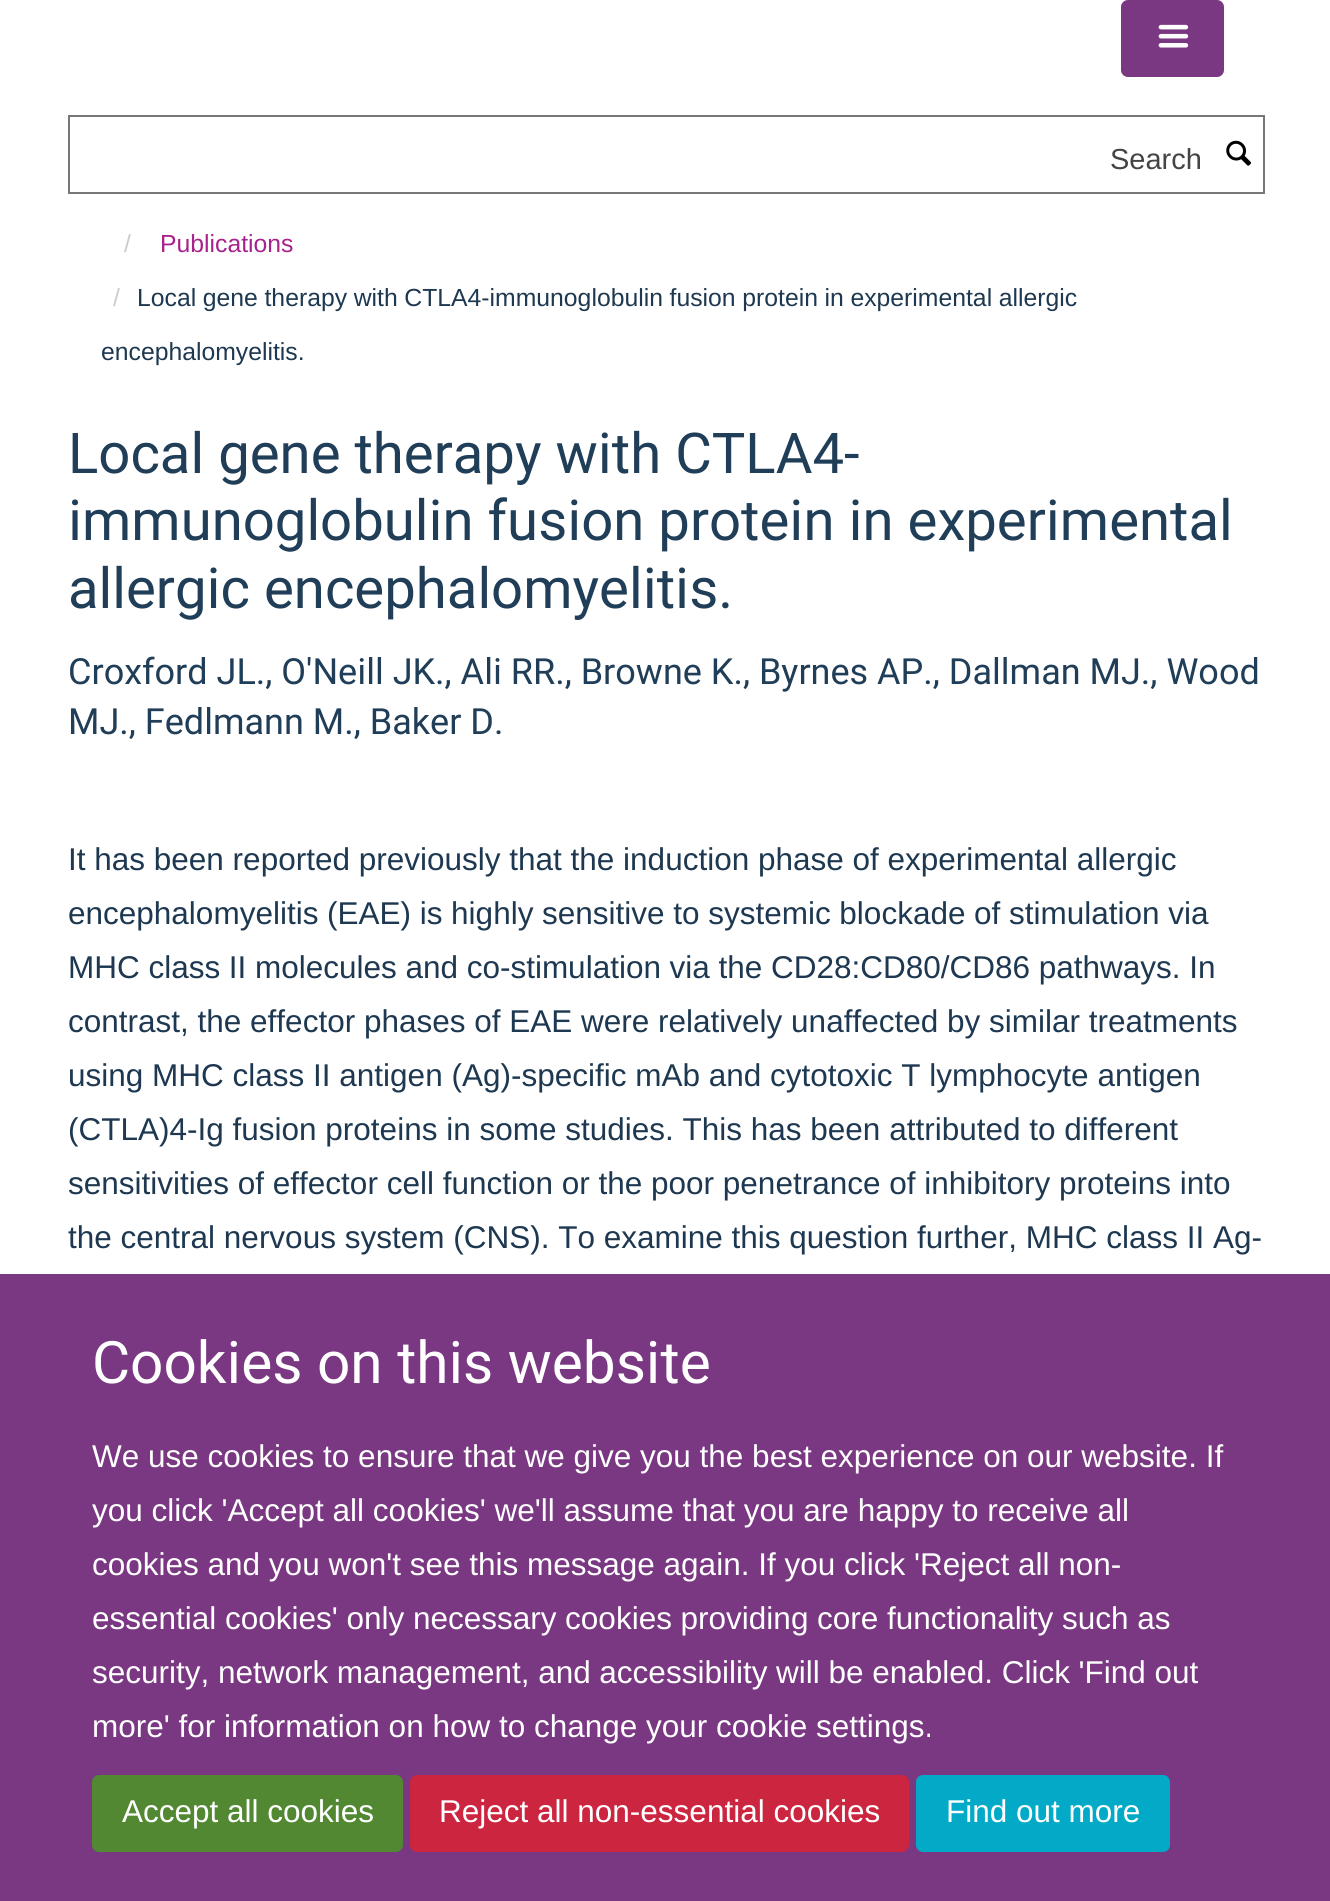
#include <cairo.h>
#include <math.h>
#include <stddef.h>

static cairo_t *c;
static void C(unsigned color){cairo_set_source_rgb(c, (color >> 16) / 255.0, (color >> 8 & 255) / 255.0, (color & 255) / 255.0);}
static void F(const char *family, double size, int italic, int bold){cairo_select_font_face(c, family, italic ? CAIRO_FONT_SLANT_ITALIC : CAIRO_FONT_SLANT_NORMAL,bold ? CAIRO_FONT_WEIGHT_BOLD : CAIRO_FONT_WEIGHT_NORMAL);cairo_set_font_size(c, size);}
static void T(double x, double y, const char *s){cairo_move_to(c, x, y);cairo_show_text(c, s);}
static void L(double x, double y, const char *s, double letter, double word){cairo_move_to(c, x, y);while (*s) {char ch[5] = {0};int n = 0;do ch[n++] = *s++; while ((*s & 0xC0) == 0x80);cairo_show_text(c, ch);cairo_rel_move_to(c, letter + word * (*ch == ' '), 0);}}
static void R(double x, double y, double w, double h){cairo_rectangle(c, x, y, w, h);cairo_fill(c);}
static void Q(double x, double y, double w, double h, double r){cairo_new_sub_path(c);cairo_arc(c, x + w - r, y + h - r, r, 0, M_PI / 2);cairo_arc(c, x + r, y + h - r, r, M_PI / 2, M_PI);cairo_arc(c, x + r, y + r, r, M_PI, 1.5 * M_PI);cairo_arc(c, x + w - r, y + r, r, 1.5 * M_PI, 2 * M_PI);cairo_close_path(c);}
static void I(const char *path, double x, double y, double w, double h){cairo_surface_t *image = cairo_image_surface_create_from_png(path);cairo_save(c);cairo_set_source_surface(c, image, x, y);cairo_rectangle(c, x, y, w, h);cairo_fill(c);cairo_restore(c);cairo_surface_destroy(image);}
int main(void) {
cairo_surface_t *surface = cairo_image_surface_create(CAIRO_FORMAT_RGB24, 1330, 1901);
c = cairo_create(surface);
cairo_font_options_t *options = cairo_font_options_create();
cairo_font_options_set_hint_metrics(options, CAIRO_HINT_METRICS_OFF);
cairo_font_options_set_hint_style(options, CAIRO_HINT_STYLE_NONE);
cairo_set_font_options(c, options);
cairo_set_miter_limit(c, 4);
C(0xffffff);
cairo_paint(c);
C(0x7a3782);
Q(1122,1,101,75,6);
cairo_fill_preserve(c);
cairo_stroke(c);
I("1.png",1158,24,31,24);
cairo_rectangle(c,69,116,1195,77);
C(0x777777);
cairo_stroke(c);
F("Liberation Sans",29,0,0);
C(0x444444);
T(1110,169,"Search");
I("2.png",1226,140,26,26);
F("Liberation Sans",24.75,0,0);
C(0xcccccc);
T(124,252,"/");
C(0xa8228b);
T(160,252,"Publications");
C(0xcccccc);
T(113,306,"/");
C(0x1d3850);
L(137,306,"Local gene therapy with CTLA4-immunoglobulin fusion protein in experimental allergic",0,-.25);
T(101,360,"encephalomyelitis.");
F("Heebo",56.25,0,0);
C(0x203e58);
T(68,473,"Local gene therapy with CTLA4-");
T(68,540,"immunoglobulin fusion protein in experimental");
T(68,608,"allergic encephalomyelitis.");
F("Heebo",36,0,0);
T(68,684,"Croxford JL., O'Neill JK., Ali RR., Browne K., Byrnes AP., Dallman MJ., Wood");
T(68,734,"MJ., Fedlmann M., Baker D.");
F("Liberation Sans",31.5,0,0);
C(0x1d3850);
T(68,870,"It has been reported previously that the induction phase of experimental allergic");
L(68,924,"encephalomyelitis (EAE) is highly sensitive to systemic blockade of stimulation via",0,-.1);
L(68,978,"MHC class II molecules and co-stimulation via the CD28:CD80/CD86 pathways. In",0,-.1);
T(68,1032,"contrast, the effector phases of EAE were relatively unaffected by similar treatments");
T(68,1086,"using MHC class II antigen (Ag)-specific mAb and cytotoxic T lymphocyte antigen");
T(68,1140,"(CTLA)4-Ig fusion proteins in some studies. This has been attributed to different");
T(68,1194,"sensitivities of effector cell function or the poor penetrance of inhibitory proteins into");
T(68,1248,"the central nervous system (CNS). To examine this question further, MHC class II Ag-");
C(0x7a3782);
R(0,1274,1330,627);
F("Heebo",58.5,0,0);
C(0xffffff);
T(92,1383,"Cookies on this website");
F("Liberation Sans",31.5,0,0);
T(92,1467,"We use cookies to ensure that we give you the best experience on our website. If");
T(92,1521,"you click 'Accept all cookies' we'll assume that you are happy to receive all");
T(92,1575,"cookies and you won't see this message again. If you click 'Reject all non-");
L(92,1629,"essential cookies' only necessary cookies providing core functionality such as",0,-.1);
L(92,1683,"security, network management, and accessibility will be enabled. Click 'Find out",0,-.1);
T(92,1737,"more' for information on how to change your cookie settings.");
C(0x518831);
Q(93,1776,309,75,6);
cairo_fill_preserve(c);
cairo_stroke(c);
C(0xffffff);
T(122,1822,"Accept all cookies");
C(0xcc253f);
Q(411,1776,497,75,6);
cairo_fill_preserve(c);
cairo_stroke(c);
C(0xffffff);
T(439,1822,"Reject all non-essential cookies");
C(0x02aac7);
Q(917,1776,252,75,6);
cairo_fill_preserve(c);
cairo_stroke(c);
C(0xffffff);
T(946,1822,"Find out more");
cairo_surface_write_to_png(surface, "o.png");
cairo_font_options_destroy(options);
cairo_destroy(c);
cairo_surface_destroy(surface);
return 0;
}
